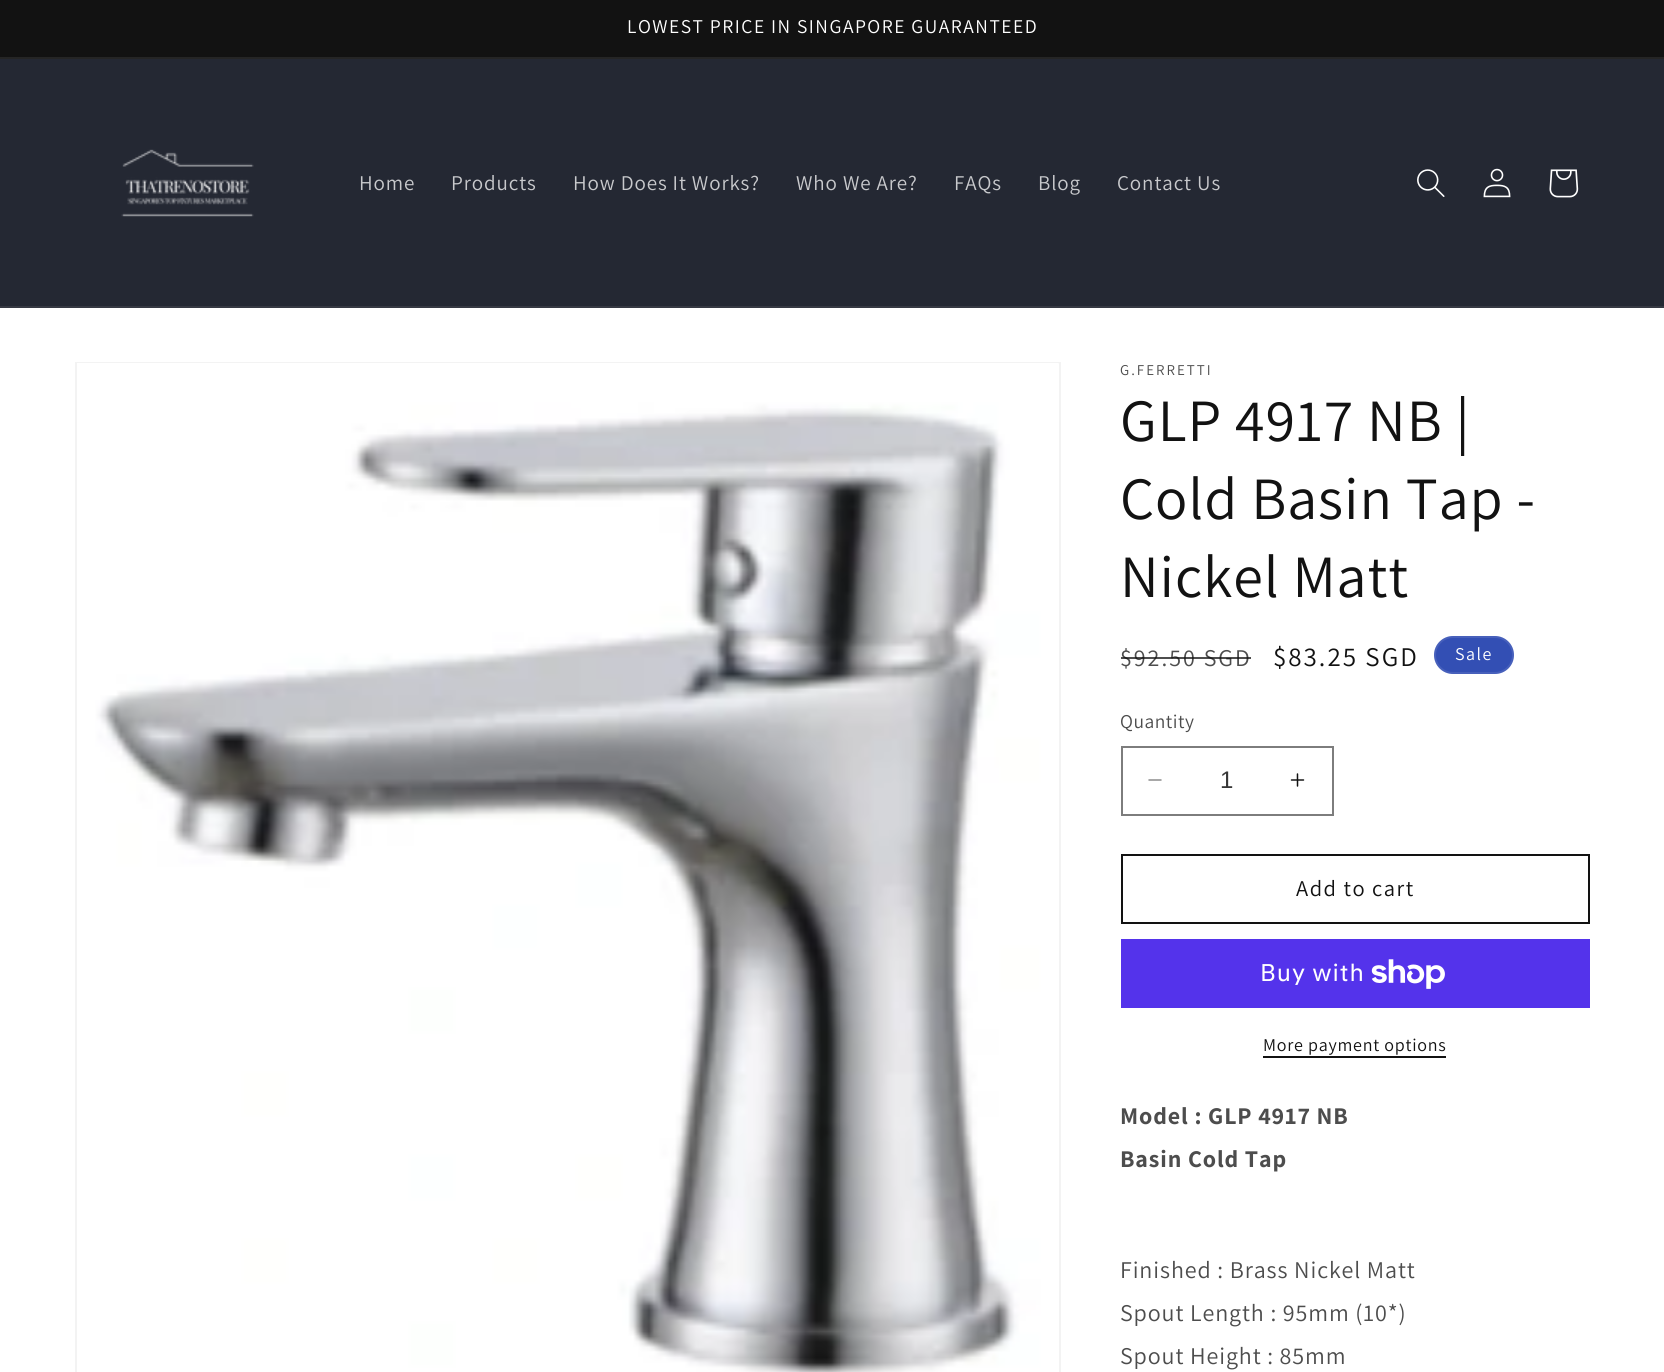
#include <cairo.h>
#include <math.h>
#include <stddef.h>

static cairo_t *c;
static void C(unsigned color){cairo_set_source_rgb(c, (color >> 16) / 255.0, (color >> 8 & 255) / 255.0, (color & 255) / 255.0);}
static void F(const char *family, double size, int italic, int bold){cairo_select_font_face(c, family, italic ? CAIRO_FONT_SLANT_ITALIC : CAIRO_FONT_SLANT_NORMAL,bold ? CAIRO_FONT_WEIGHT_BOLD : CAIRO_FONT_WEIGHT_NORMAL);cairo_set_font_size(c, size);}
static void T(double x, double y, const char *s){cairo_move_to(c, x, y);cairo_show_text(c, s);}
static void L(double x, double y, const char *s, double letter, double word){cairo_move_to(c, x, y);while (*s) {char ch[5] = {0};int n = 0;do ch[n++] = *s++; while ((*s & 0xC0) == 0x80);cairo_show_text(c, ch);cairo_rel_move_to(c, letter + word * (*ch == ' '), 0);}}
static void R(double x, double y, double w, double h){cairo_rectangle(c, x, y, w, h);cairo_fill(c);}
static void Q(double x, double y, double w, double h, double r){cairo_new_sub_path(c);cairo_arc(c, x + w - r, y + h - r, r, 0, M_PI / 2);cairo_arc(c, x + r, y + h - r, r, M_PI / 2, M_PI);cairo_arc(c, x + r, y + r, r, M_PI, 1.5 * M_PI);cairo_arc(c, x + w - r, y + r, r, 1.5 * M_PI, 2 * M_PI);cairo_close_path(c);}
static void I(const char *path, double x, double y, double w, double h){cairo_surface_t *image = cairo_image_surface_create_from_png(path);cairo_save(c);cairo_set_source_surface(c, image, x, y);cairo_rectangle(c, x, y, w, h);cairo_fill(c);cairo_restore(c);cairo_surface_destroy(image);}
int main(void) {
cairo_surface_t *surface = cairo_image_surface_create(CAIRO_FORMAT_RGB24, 1664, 1372);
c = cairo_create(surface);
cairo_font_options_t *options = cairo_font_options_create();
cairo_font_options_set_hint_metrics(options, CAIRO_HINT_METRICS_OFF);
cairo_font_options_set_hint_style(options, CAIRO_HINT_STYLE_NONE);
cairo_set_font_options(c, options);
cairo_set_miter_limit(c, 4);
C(0xffffff);
cairo_paint(c);
C(0x121212);
R(0,0,1664,57);
C(0x252525);
R(0,57,1664,2);
F("Assistant",19.5,0,0);
C(0xffffff);
L(627,33,"LOWEST PRICE IN SINGAPORE GUARANTEED",1.5,0);
C(0x242833);
R(0,59,1664,247);
C(0x363943);
R(0,306,1664,2);
I("1.png",121,149,133,68);
F("Assistant",21,0,0);
C(0xc8c9cc);
L(359,190,"Home",.9,0);
L(451,190,"Products",.9,0);
L(573,190,"How Does It Works?",.9,0);
L(796,190,"Who We Are?",.9,0);
L(954,190,"FAQs",.9,0);
L(1038,190,"Blog",.9,0);
L(1117,190,"Contact Us",.9,0);
I("2.png",1417,169,28,28);
I("3.png",1483,168,28,30);
I("4.png",1549,169,30,29);
cairo_rectangle(c,76,363,984,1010);
C(0xf3f3f3);
cairo_stroke(c);
I("5.png",77,363,982,1009);
F("Assistant",15,0,0);
C(0x4d4d4d);
L(1120,375,"G.FERRETTI",2,0);
F("Assistant",60,0,0);
C(0x121212);
L(1120,441,"GLP 4917 NB |",.9,0);
L(1120,519,"Cold Basin Tap -",.9,0);
L(1120,597,"Nickel Matt",.9,0);
F("Assistant",24,0,0);
C(0x4d4d4d);
L(1120,666,"$92.50 SGD",2,0);
cairo_set_source_rgba(c,0.071,0.071,0.071,0.75);
R(1121,657,130,2);
F("Assistant",27,0,0);
C(0x121212);
L(1273,666,"$83.25 SGD",2,0);
C(0x334fb4);
Q(1434,636,80,38,19);
cairo_fill(c);
Q(1435,637,78,36,18);
cairo_set_source_rgba(c,1,1,1,0.1);
cairo_stroke(c);
F("Assistant",18,0,0);
C(0xffffff);
L(1455,660,"Sale",1.5,0);
F("Assistant",19.5,0,0);
C(0x4d4d4d);
L(1120,728,"Quantity",.5,0);
I("6.png",1148,779,14,2);
I("7.png",1290,773,15,14);
cairo_rectangle(c,1122,747,211,68);
C(0x7d7d7d);
cairo_stroke(c);
F("Liberation Sans",24,0,0);
C(0x363636);
T(1220,788,"1");
cairo_rectangle(c,1122,855,467,68);
C(0x121212);
cairo_stroke(c);
F("Assistant",22.5,0,0);
L(1296,896,"Add to cart",1.5,0);
C(0x5433eb);
R(1121,939,469,69);
F("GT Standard",24,0,0);
C(0xffffff);
L(1260,981,"Buy with",.9,0);
I("8.png",1371,959,74,30);
F("Assistant",18,0,0);
C(0x121212);
L(1263,1051,"More payment options",.75,0);
R(1263,1056,183,2);
F("Assistant",24,0,1);
C(0x4d4d4d);
L(1120,1124,"Model : GLP 4917 NB",.9,0);
L(1120,1167,"Basin Cold Tap",.9,0);
F("Assistant",24,0,0);
L(1120,1278,"Finished : Brass Nickel Matt",.9,0);
L(1120,1321,"Spout Length : 95mm (10*)",.9,0);
L(1120,1364,"Spout Height : 85mm",.9,0);
cairo_surface_write_to_png(surface, "o.png");
cairo_font_options_destroy(options);
cairo_destroy(c);
cairo_surface_destroy(surface);
return 0;
}
